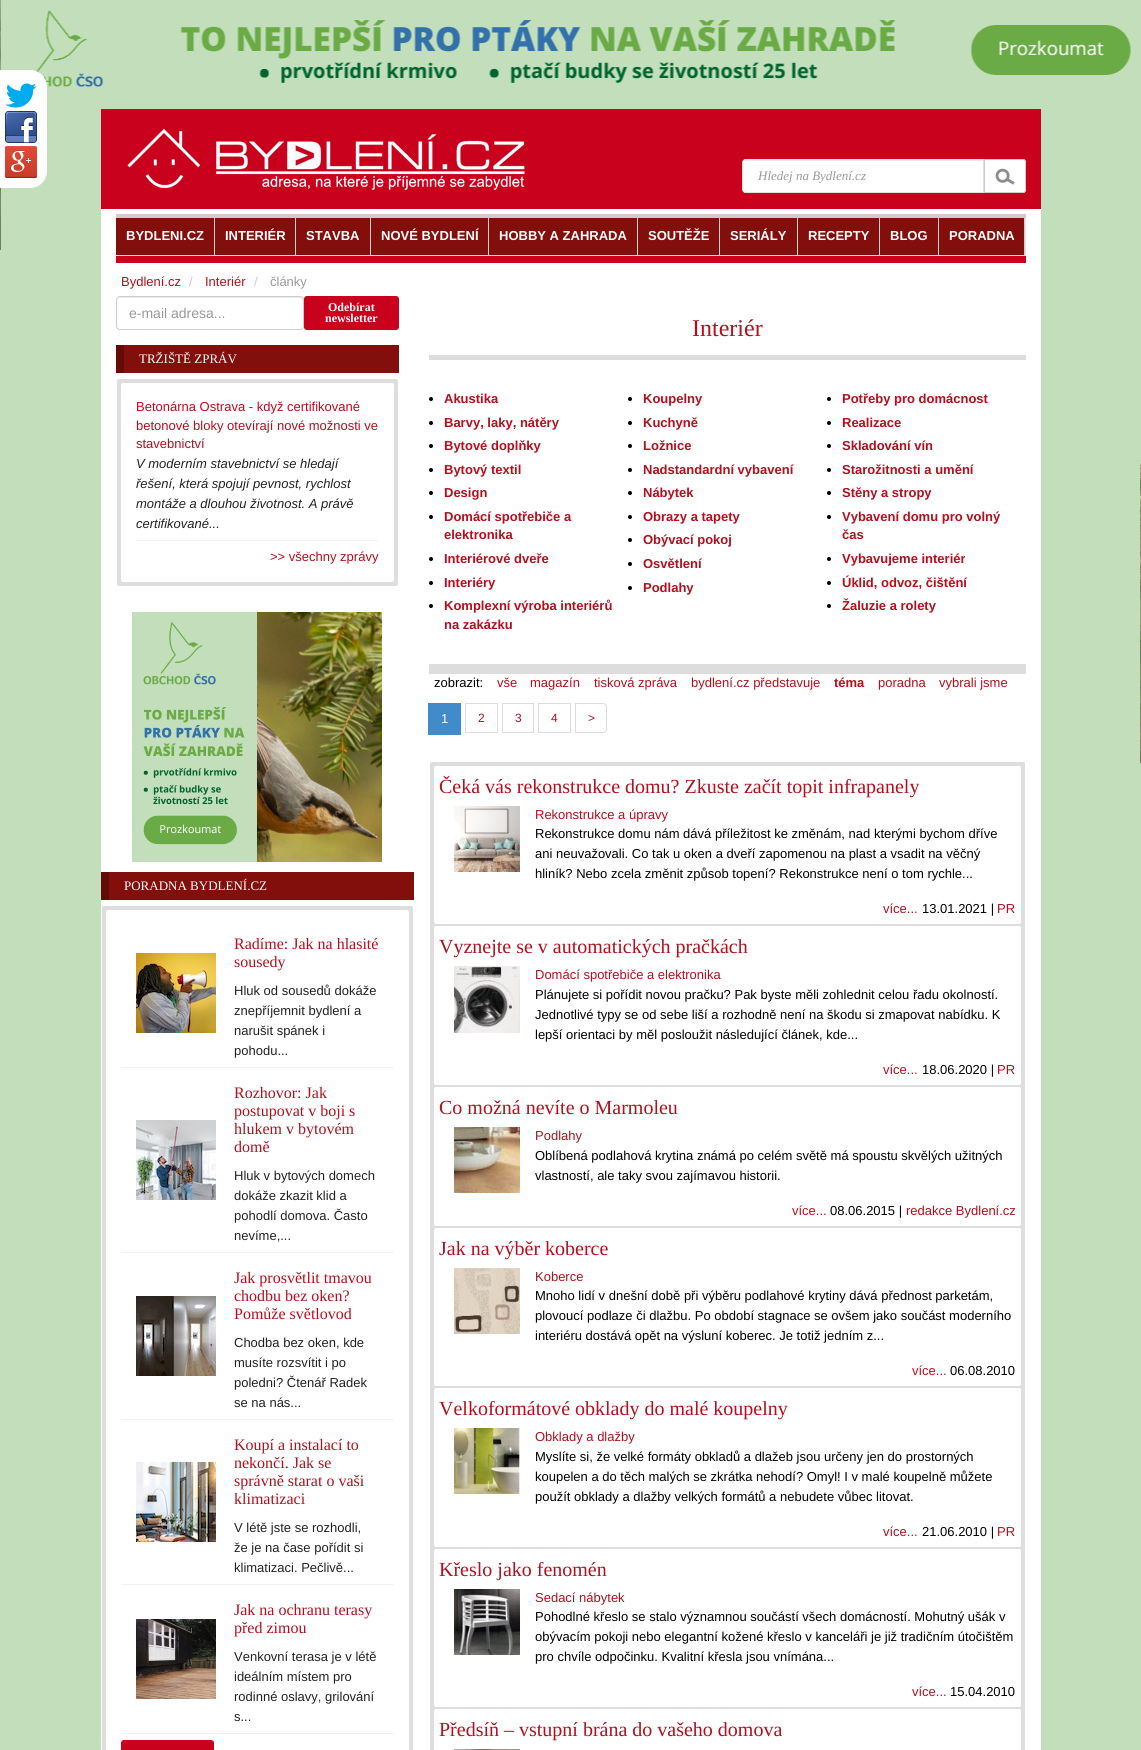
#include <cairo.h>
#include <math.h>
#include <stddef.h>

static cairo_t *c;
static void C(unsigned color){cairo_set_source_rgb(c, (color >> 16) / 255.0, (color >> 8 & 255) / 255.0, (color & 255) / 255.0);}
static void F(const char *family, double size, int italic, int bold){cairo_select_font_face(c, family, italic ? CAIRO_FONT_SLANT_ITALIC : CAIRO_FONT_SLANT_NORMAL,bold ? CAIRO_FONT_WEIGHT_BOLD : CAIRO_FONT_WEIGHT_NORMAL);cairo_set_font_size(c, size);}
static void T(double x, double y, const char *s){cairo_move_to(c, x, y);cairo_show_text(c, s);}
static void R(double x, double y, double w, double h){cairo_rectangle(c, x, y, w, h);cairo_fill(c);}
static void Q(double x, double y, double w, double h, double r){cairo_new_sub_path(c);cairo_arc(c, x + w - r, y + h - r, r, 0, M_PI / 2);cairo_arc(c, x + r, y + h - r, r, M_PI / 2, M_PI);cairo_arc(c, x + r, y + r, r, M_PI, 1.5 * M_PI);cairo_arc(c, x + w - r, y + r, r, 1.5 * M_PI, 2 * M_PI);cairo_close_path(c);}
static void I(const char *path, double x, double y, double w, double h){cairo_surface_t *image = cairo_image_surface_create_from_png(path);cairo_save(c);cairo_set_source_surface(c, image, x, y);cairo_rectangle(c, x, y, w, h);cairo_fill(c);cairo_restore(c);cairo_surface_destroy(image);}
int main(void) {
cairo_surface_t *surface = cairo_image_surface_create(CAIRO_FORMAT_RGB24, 1141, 1750);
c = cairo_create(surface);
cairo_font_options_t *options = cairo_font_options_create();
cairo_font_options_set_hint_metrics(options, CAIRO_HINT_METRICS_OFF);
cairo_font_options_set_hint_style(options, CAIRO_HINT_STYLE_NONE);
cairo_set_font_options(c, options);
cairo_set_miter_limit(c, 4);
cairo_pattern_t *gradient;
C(0xc3debb);
cairo_paint(c);
I("1.png",0,0,1141,763);
C(0xffffff);
Q(-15,70,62,118,17);
cairo_fill(c);
I("2.png",5,83,32,25);
I("3.png",5,111,32,32);
I("4.png",5,146,32,32);
R(101,209,940,87);
C(0xca011c);
R(101,109,940,100);
I("5.png",127,128,398,62);
C(0xffffff);
cairo_new_path(c);
cairo_move_to(c,746,159);
cairo_line_to(c,984,159);
cairo_line_to(c,984,193);
cairo_line_to(c,746,193);
cairo_curve_to(c,744,193,742,191,742,189);
cairo_line_to(c,742,163);
cairo_curve_to(c,742,161,744,159,746,159);
cairo_close_path(c);
cairo_fill(c);
C(0xececec);
cairo_new_path(c);
cairo_move_to(c,746,161);
cairo_line_to(c,983,161);
cairo_line_to(c,983,160);
cairo_line_to(c,746,160);
cairo_curve_to(c,744,160,743,162,743,164);
cairo_curve_to(c,743,162,744,161,746,161);
cairo_close_path(c);
cairo_fill(c);
cairo_new_path(c);
cairo_move_to(c,746,159.5);
cairo_line_to(c,983.5,159.5);
cairo_line_to(c,983.5,192.5);
cairo_line_to(c,746,192.5);
cairo_curve_to(c,744,192.5,742.5,191,742.5,189);
cairo_line_to(c,742.5,163);
cairo_curve_to(c,742.5,161,744,159.5,746,159.5);
cairo_close_path(c);
C(0xe0e0e0);
cairo_set_line_width(c,1);
cairo_stroke(c);
F("Liberation Serif",13,1,0);
C(0x999999);
T(758,180,"Hledej na Bydlení.cz");
C(0xffffff);
cairo_new_path(c);
cairo_move_to(c,984,159);
cairo_line_to(c,1023,159);
cairo_curve_to(c,1024.5,159,1026,160.5,1026,162);
cairo_line_to(c,1026,190);
cairo_curve_to(c,1026,191.5,1024.5,193,1023,193);
cairo_line_to(c,984,193);
cairo_close_path(c);
cairo_fill(c);
I("6.png",995,168,20,17);
cairo_new_path(c);
cairo_move_to(c,984.5,159.5);
cairo_line_to(c,1023,159.5);
cairo_curve_to(c,1024.5,159.5,1025.5,160.5,1025.5,162);
cairo_line_to(c,1025.5,190);
cairo_curve_to(c,1025.5,191.5,1024.5,192.5,1023,192.5);
cairo_line_to(c,984.5,192.5);
cairo_close_path(c);
C(0xcccccc);
cairo_stroke(c);
gradient = cairo_pattern_create_linear(571,218,571,256);
cairo_pattern_add_color_stop_rgba(gradient,0,0.918,0.918,0.918,1);
cairo_pattern_add_color_stop_rgba(gradient,1,0.867,0.867,0.867,1);
cairo_set_source(c,gradient);
cairo_pattern_destroy(gradient);
R(116,218,910,38);
C(0xcdcdcd);
R(116,214,910,4);
C(0xca011c);
R(116,256,910,7);
C(0xcdcdcd);
R(214,218,1,37);
C(0x820f0b);
R(116,218,98,37);
F("Liberation Sans",13,0,1);
C(0xffffff);
T(126,240,"BYDLENI.CZ");
C(0xcdcdcd);
R(295,218,1,37);
C(0x820f0b);
R(215,218,80,37);
C(0xffffff);
T(225,240,"INTERIÉR");
C(0xcdcdcd);
R(370,218,1,37);
C(0x820f0b);
R(296,218,74,37);
C(0xffffff);
T(306,240,"STAVBA");
C(0xcdcdcd);
R(488,218,1,37);
C(0x820f0b);
R(371,218,117,37);
C(0xffffff);
T(381,240,"NOVÉ BYDLENÍ");
C(0xcdcdcd);
R(637,218,1,37);
C(0x820f0b);
R(489,218,148,37);
C(0xffffff);
T(499,240,"HOBBY A ZAHRADA");
C(0xcdcdcd);
R(719,218,1,37);
C(0x820f0b);
R(638,218,81,37);
C(0xffffff);
T(648,240,"SOUTĚŽE");
C(0xcdcdcd);
R(797,218,1,37);
C(0x820f0b);
R(720,218,77,37);
C(0xffffff);
T(730,240,"SERIÁLY");
C(0xcdcdcd);
R(879,218,1,37);
C(0x820f0b);
R(798,218,81,37);
C(0xffffff);
T(808,240,"RECEPTY");
C(0xcdcdcd);
R(938,218,1,37);
C(0x820f0b);
R(880,218,58,37);
C(0xffffff);
T(890,240,"BLOG");
C(0xcdcdcd);
R(1024,218,1,37);
C(0x820f0b);
R(939,218,85,37);
C(0xffffff);
T(949,240,"PORADNA");
F("Liberation Sans",13,0,0);
C(0xb30f1c);
T(121,286,"Bydlení.cz");
C(0xcccccc);
T(189,286,"/");
C(0xb30f1c);
T(205,286,"Interiér");
C(0xcccccc);
T(254,286,"/");
C(0x999999);
T(270,286,"články");
C(0xffffff);
R(101,296,940,1454);
C(0xececec);
cairo_new_path(c);
cairo_move_to(c,120,298);
cairo_line_to(c,300,298);
cairo_line_to(c,302,299);
cairo_line_to(c,303,301);
cairo_curve_to(c,303,299,302,297,300,297);
cairo_line_to(c,119,297);
cairo_curve_to(c,117,298,117,299,117,301);
cairo_curve_to(c,117,299,118,298,120,298);
cairo_close_path(c);
cairo_fill(c);
Q(116.5,296.5,187,33,3.5);
C(0xcccccc);
cairo_stroke(c);
F("Liberation Sans",14,0,0);
C(0x999999);
T(129,318,"e-mail adresa...");
C(0xca011c);
Q(304.5,296.5,94,33,2.5);
cairo_fill_preserve(c);
cairo_stroke(c);
F("Liberation Serif",12,0,1);
C(0xffffff);
T(328,311,"Odebírat");
T(325,322,"newsletter");
C(0x820f0b);
R(124,345,275,28);
C(0x620b08);
R(116,345,8,28);
F("Liberation Serif",13,0,0);
C(0xffffff);
T(139,363,"TRŽIŠTĚ ZPRÁV");
C(0xdedede);
Q(116.5,378.5,282,208,2.5);
cairo_fill_preserve(c);
C(0xffffff);
cairo_stroke(c);
Q(120.5,382.5,274,200,2.5);
cairo_fill_preserve(c);
C(0xdedede);
cairo_stroke(c);
C(0xf2f2f2);
R(136,540,243,1);
F("Liberation Sans",13,0,0);
C(0xb30f1c);
T(136,411,"Betonárna Ostrava - když certifikované");
T(136,430,"betonové bloky otevírají nové možnosti ve");
T(136,448,"stavebnictví");
F("Liberation Sans",13,1,0);
C(0x222222);
T(136,468,"V moderním stavebnictví se hledají");
T(136,488,"řešení, která spojují pevnost, rychlost");
T(136,508,"montáže a dlouhou životnost. A právě");
T(136,528,"certifikované...");
F("Liberation Sans",13,0,0);
C(0xb30f1c);
T(270,561,">> všechny zprávy");
I("7.png",132,612,250,250);
C(0x820f0b);
R(109,872,305,28);
C(0x620b08);
R(101,872,8,28);
F("Liberation Serif",13,0,0);
C(0xffffff);
T(124,890,"PORADNA BYDLENÍ.CZ");
C(0xdedede);
Q(101.5,905.5,312,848,2.5);
cairo_fill_preserve(c);
C(0xffffff);
cairo_stroke(c);
Q(105.5,909.5,304,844,2.5);
cairo_fill_preserve(c);
C(0xdedede);
cairo_stroke(c);
C(0xf2f2f2);
R(121,1067,273,1);
I("8.png",136,953,80,80);
F("Liberation Serif",16,0,0);
C(0xb30f1c);
T(234,949,"Radíme: Jak na hlasité");
T(234,967,"sousedy");
F("Liberation Sans",13,0,0);
C(0x222222);
T(234,995,"Hluk od sousedů dokáže");
T(234,1015,"znepříjemnit bydlení a");
T(234,1035,"narušit spánek i");
T(234,1055,"pohodu...");
C(0xf2f2f2);
R(121,1252,273,1);
I("9.png",136,1120,80,80);
F("Liberation Serif",16,0,0);
C(0xb30f1c);
T(234,1098,"Rozhovor: Jak");
T(234,1116,"postupovat v boji s");
T(234,1134,"hlukem v bytovém");
T(234,1152,"domě");
F("Liberation Sans",13,0,0);
C(0x222222);
T(234,1180,"Hluk v bytových domech");
T(234,1200,"dokáže zkazit klid a");
T(234,1220,"pohodlí domova. Často");
T(234,1240,"nevíme,...");
C(0xf2f2f2);
R(121,1419,273,1);
I("10.png",136,1296,80,80);
F("Liberation Serif",16,0,0);
C(0xb30f1c);
T(234,1283,"Jak prosvětlit tmavou");
T(234,1301,"chodbu bez oken?");
T(234,1319,"Pomůže světlovod");
F("Liberation Sans",13,0,0);
C(0x222222);
T(234,1347,"Chodba bez oken, kde");
T(234,1367,"musíte rozsvítit i po");
T(234,1387,"poledni? Čtenář Radek");
T(234,1407,"se na nás...");
C(0xf2f2f2);
R(121,1584,273,1);
I("11.png",136,1462,80,80);
F("Liberation Serif",16,0,0);
C(0xb30f1c);
T(234,1450,"Koupí a instalací to");
T(234,1468,"nekončí. Jak se");
T(234,1486,"správně starat o vaši");
T(234,1504,"klimatizaci");
F("Liberation Sans",13,0,0);
C(0x222222);
T(234,1532,"V létě jste se rozhodli,");
T(234,1552,"že je na čase pořídit si");
T(234,1572,"klimatizaci. Pečlivě...");
C(0xf2f2f2);
R(121,1733,273,1);
I("12.png",136,1619,80,80);
F("Liberation Serif",16,0,0);
C(0xb30f1c);
T(234,1615,"Jak na ochranu terasy");
T(234,1633,"před zimou");
F("Liberation Sans",13,0,0);
C(0x222222);
T(234,1661,"Venkovní terasa je v létě");
T(234,1681,"ideálním místem pro");
T(234,1701,"rodinné oslavy, grilování");
T(234,1721,"s...");
C(0xca011c);
Q(121.5,1740.5,92,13,2.5);
cairo_fill_preserve(c);
cairo_stroke(c);
C(0xdddddd);
R(429,355,597,5);
F("Liberation Serif",24,0,0);
C(0xb30f1c);
T(692,336,"Interiér");
C(0x000000);
cairo_new_path(c);
cairo_arc(c,431,399,2,0,2 * M_PI);
cairo_fill(c);
F("Liberation Sans",13,0,1);
C(0xb30f1c);
T(444,403,"Akustika");
C(0x000000);
cairo_new_path(c);
cairo_arc(c,431,423,2,0,2 * M_PI);
cairo_fill(c);
C(0xb30f1c);
T(444,427,"Barvy, laky, nátěry");
C(0x000000);
cairo_new_path(c);
cairo_arc(c,431,446,2,0,2 * M_PI);
cairo_fill(c);
C(0xb30f1c);
T(444,450,"Bytové doplňky");
C(0x000000);
cairo_new_path(c);
cairo_arc(c,431,470,2,0,2 * M_PI);
cairo_fill(c);
C(0xb30f1c);
T(444,474,"Bytový textil");
C(0x000000);
cairo_new_path(c);
cairo_arc(c,431,493,2,0,2 * M_PI);
cairo_fill(c);
C(0xb30f1c);
T(444,497,"Design");
C(0x000000);
cairo_new_path(c);
cairo_arc(c,431,517,2,0,2 * M_PI);
cairo_fill(c);
C(0xb30f1c);
T(444,521,"Domácí spotřebiče a");
T(444,539,"elektronika");
C(0x000000);
cairo_new_path(c);
cairo_arc(c,431,559,2,0,2 * M_PI);
cairo_fill(c);
C(0xb30f1c);
T(444,563,"Interiérové dveře");
C(0x000000);
cairo_new_path(c);
cairo_arc(c,431,583,2,0,2 * M_PI);
cairo_fill(c);
C(0xb30f1c);
T(444,587,"Interiéry");
C(0x000000);
cairo_new_path(c);
cairo_arc(c,431,606,2,0,2 * M_PI);
cairo_fill(c);
C(0xb30f1c);
T(444,610,"Komplexní výroba interiérů");
T(444,629,"na zakázku");
C(0x000000);
cairo_new_path(c);
cairo_arc(c,630,399,2,0,2 * M_PI);
cairo_fill(c);
C(0xb30f1c);
T(643,403,"Koupelny");
C(0x000000);
cairo_new_path(c);
cairo_arc(c,630,423,2,0,2 * M_PI);
cairo_fill(c);
C(0xb30f1c);
T(643,427,"Kuchyně");
C(0x000000);
cairo_new_path(c);
cairo_arc(c,630,446,2,0,2 * M_PI);
cairo_fill(c);
C(0xb30f1c);
T(643,450,"Ložnice");
C(0x000000);
cairo_new_path(c);
cairo_arc(c,630,470,2,0,2 * M_PI);
cairo_fill(c);
C(0xb30f1c);
T(643,474,"Nadstandardní vybavení");
C(0x000000);
cairo_new_path(c);
cairo_arc(c,630,493,2,0,2 * M_PI);
cairo_fill(c);
C(0xb30f1c);
T(643,497,"Nábytek");
C(0x000000);
cairo_new_path(c);
cairo_arc(c,630,517,2,0,2 * M_PI);
cairo_fill(c);
C(0xb30f1c);
T(643,521,"Obrazy a tapety");
C(0x000000);
cairo_new_path(c);
cairo_arc(c,630,540,2,0,2 * M_PI);
cairo_fill(c);
C(0xb30f1c);
T(643,544,"Obývací pokoj");
C(0x000000);
cairo_new_path(c);
cairo_arc(c,630,564,2,0,2 * M_PI);
cairo_fill(c);
C(0xb30f1c);
T(643,568,"Osvětlení");
C(0x000000);
cairo_new_path(c);
cairo_arc(c,630,588,2,0,2 * M_PI);
cairo_fill(c);
C(0xb30f1c);
T(643,592,"Podlahy");
C(0x000000);
cairo_new_path(c);
cairo_arc(c,829,399,2,0,2 * M_PI);
cairo_fill(c);
C(0xb30f1c);
T(842,403,"Potřeby pro domácnost");
C(0x000000);
cairo_new_path(c);
cairo_arc(c,829,423,2,0,2 * M_PI);
cairo_fill(c);
C(0xb30f1c);
T(842,427,"Realizace");
C(0x000000);
cairo_new_path(c);
cairo_arc(c,829,446,2,0,2 * M_PI);
cairo_fill(c);
C(0xb30f1c);
T(842,450,"Skladování vín");
C(0x000000);
cairo_new_path(c);
cairo_arc(c,829,470,2,0,2 * M_PI);
cairo_fill(c);
C(0xb30f1c);
T(842,474,"Starožitnosti a umění");
C(0x000000);
cairo_new_path(c);
cairo_arc(c,829,493,2,0,2 * M_PI);
cairo_fill(c);
C(0xb30f1c);
T(842,497,"Stěny a stropy");
C(0x000000);
cairo_new_path(c);
cairo_arc(c,829,517,2,0,2 * M_PI);
cairo_fill(c);
C(0xb30f1c);
T(842,521,"Vybavení domu pro volný");
T(842,539,"čas");
C(0x000000);
cairo_new_path(c);
cairo_arc(c,829,559,2,0,2 * M_PI);
cairo_fill(c);
C(0xb30f1c);
T(842,563,"Vybavujeme interiér");
C(0x000000);
cairo_new_path(c);
cairo_arc(c,829,583,2,0,2 * M_PI);
cairo_fill(c);
C(0xb30f1c);
T(842,587,"Úklid, odvoz, čištění");
C(0x000000);
cairo_new_path(c);
cairo_arc(c,829,606,2,0,2 * M_PI);
cairo_fill(c);
C(0xb30f1c);
T(842,610,"Žaluzie a rolety");
C(0xdddddd);
R(429,664,597,10);
F("Liberation Sans",13,0,0);
C(0x000000);
T(434,687,"zobrazit:");
C(0xb30f1c);
T(497,687,"vše");
T(530,687,"magazín");
T(594,687,"tisková zpráva");
T(691,687,"bydlení.cz představuje");
F("Liberation Sans",13,0,1);
T(834,687,"téma");
F("Liberation Sans",13,0,0);
T(878,687,"poradna");
T(939,687,"vybrali jsme");
C(0x428bca);
R(428,703,33,32);
C(0xffffff);
T(441,723,"1");
cairo_rectangle(c,465.5,703.5,32,29);
C(0xdddddd);
cairo_stroke(c);
F("Liberation Sans",12,0,0);
C(0xb30f1c);
T(478,722,"2");
cairo_rectangle(c,502.5,703.5,31,29);
C(0xdddddd);
cairo_stroke(c);
C(0xb30f1c);
T(515,722,"3");
cairo_rectangle(c,538.5,703.5,32,29);
C(0xdddddd);
cairo_stroke(c);
C(0xb30f1c);
T(551,722,"4");
cairo_new_path(c);
cairo_move_to(c,575.5,703.5);
cairo_line_to(c,603,703.5);
cairo_curve_to(c,605,703.5,606.5,705,606.5,707);
cairo_line_to(c,606.5,729);
cairo_curve_to(c,606.5,731,605,732.5,603,732.5);
cairo_line_to(c,575.5,732.5);
cairo_close_path(c);
C(0xdddddd);
cairo_stroke(c);
C(0xb30f1c);
T(588,722,">");
C(0xdedede);
Q(429.5,761.5,596,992,2.5);
cairo_fill_preserve(c);
C(0xffffff);
cairo_stroke(c);
Q(433.5,765.5,588,159,2.5);
cairo_fill_preserve(c);
C(0xdedede);
cairo_stroke(c);
F("Liberation Serif",20,0,0);
C(0xb30f1c);
T(439,793,"Čeká vás rekonstrukce domu? Zkuste začít topit infrapanely");
I("13.png",454,806,66,66);
F("Liberation Sans",13,0,0);
T(535,819,"Rekonstrukce a úpravy");
C(0x000000);
T(535,838,"Rekonstrukce domu nám dává příležitost ke změnám, nad kterými bychom dříve");
T(535,858,"ani neuvažovali. Co tak u oken a dveří zapomenou na plast a vsadit na věčný");
T(535,878,"hliník? Nebo zcela změnit způsob topení? Rekonstrukce není o tom rychle...");
C(0xb30f1c);
T(883,913,"více...");
C(0x000000);
T(922,913,"13.01.2021 |");
C(0xb30f1c);
T(997,913,"PR");
C(0xffffff);
Q(433.5,925.5,588,160,2.5);
cairo_fill_preserve(c);
C(0xdedede);
cairo_stroke(c);
F("Liberation Serif",20,0,0);
C(0xb30f1c);
T(439,953,"Vyznejte se v automatických pračkách");
I("14.png",454,966,66,67);
F("Liberation Sans",13,0,0);
T(535,979,"Domácí spotřebiče a elektronika");
C(0x000000);
T(535,999,"Plánujete si pořídit novou pračku? Pak byste měli zohlednit celou řadu okolností.");
T(535,1019,"Jednotlivé typy se od sebe liší a rozhodně není na škodu si zmapovat nabídku. K");
T(535,1039,"lepší orientaci by měl posloužit následující článek, kde...");
C(0xb30f1c);
T(883,1074,"více...");
C(0x000000);
T(922,1074,"18.06.2020 |");
C(0xb30f1c);
T(997,1074,"PR");
C(0xffffff);
Q(433.5,1086.5,588,140,2.5);
cairo_fill_preserve(c);
C(0xdedede);
cairo_stroke(c);
F("Liberation Serif",20,0,0);
C(0xb30f1c);
T(439,1114,"Co možná nevíte o Marmoleu");
I("15.png",454,1127,66,66);
F("Liberation Sans",13,0,0);
T(535,1140,"Podlahy");
C(0x000000);
T(535,1160,"Oblíbená podlahová krytina známá po celém světě má spoustu skvělých užitných");
T(535,1180,"vlastností, ale taky svou zajímavou historii.");
C(0xb30f1c);
T(792,1215,"více...");
C(0x000000);
T(830,1215,"08.06.2015 |");
C(0xb30f1c);
T(906,1215,"redakce Bydlení.cz");
C(0xffffff);
Q(433.5,1227.5,588,159,2.5);
cairo_fill_preserve(c);
C(0xdedede);
cairo_stroke(c);
F("Liberation Serif",20,0,0);
C(0xb30f1c);
T(439,1255,"Jak na výběr koberce");
I("16.png",454,1268,66,66);
F("Liberation Sans",13,0,0);
T(535,1281,"Koberce");
C(0x000000);
T(535,1300,"Mnoho lidí v dnešní době při výběru podlahové krytiny dává přednost parketám,");
T(535,1320,"plovoucí podlaze či dlažbu. Po období stagnace se ovšem jako součást moderního");
T(535,1340,"interiéru dostává opět na výsluní koberec. Je totiž jedním z...");
C(0xb30f1c);
T(912,1375,"více...");
C(0x000000);
T(950,1375,"06.08.2010");
C(0xffffff);
Q(433.5,1387.5,588,160,2.5);
cairo_fill_preserve(c);
C(0xdedede);
cairo_stroke(c);
F("Liberation Serif",20,0,0);
C(0xb30f1c);
T(439,1415,"Velkoformátové obklady do malé koupelny");
I("17.png",454,1428,66,66);
F("Liberation Sans",13,0,0);
T(535,1441,"Obklady a dlažby");
C(0x000000);
T(535,1461,"Myslíte si, že velké formáty obkladů a dlažeb jsou určeny jen do prostorných");
T(535,1481,"koupelen a do těch malých se zkrátka nehodí? Omyl! I v malé koupelně můžete");
T(535,1501,"použít obklady a dlažby velkých formátů a nebudete vůbec litovat.");
C(0xb30f1c);
T(883,1536,"více...");
C(0x000000);
T(922,1536,"21.06.2010 |");
C(0xb30f1c);
T(997,1536,"PR");
C(0xffffff);
Q(433.5,1548.5,588,159,2.5);
cairo_fill_preserve(c);
C(0xdedede);
cairo_stroke(c);
F("Liberation Serif",20,0,0);
C(0xb30f1c);
T(439,1576,"Křeslo jako fenomén");
I("18.png",454,1589,66,66);
F("Liberation Sans",13,0,0);
T(535,1602,"Sedací nábytek");
C(0x000000);
T(535,1621,"Pohodlné křeslo se stalo významnou součástí všech domácností. Mohutný ušák v");
T(535,1641,"obývacím pokoji nebo elegantní kožené křeslo v kanceláři je již tradičním útočištěm");
T(535,1661,"pro chvíle odpočinku. Kvalitní křesla jsou vnímána...");
C(0xb30f1c);
T(912,1696,"více...");
C(0x000000);
T(950,1696,"15.04.2010");
C(0xffffff);
Q(433.5,1708.5,588,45,2.5);
cairo_fill_preserve(c);
C(0xdedede);
cairo_stroke(c);
F("Liberation Serif",20,0,0);
C(0xb30f1c);
T(439,1736,"Předsíň – vstupní brána do vašeho domova");
I("19.png",454,1749,66,1);
cairo_surface_write_to_png(surface, "o.png");
cairo_font_options_destroy(options);
cairo_destroy(c);
cairo_surface_destroy(surface);
return 0;
}
